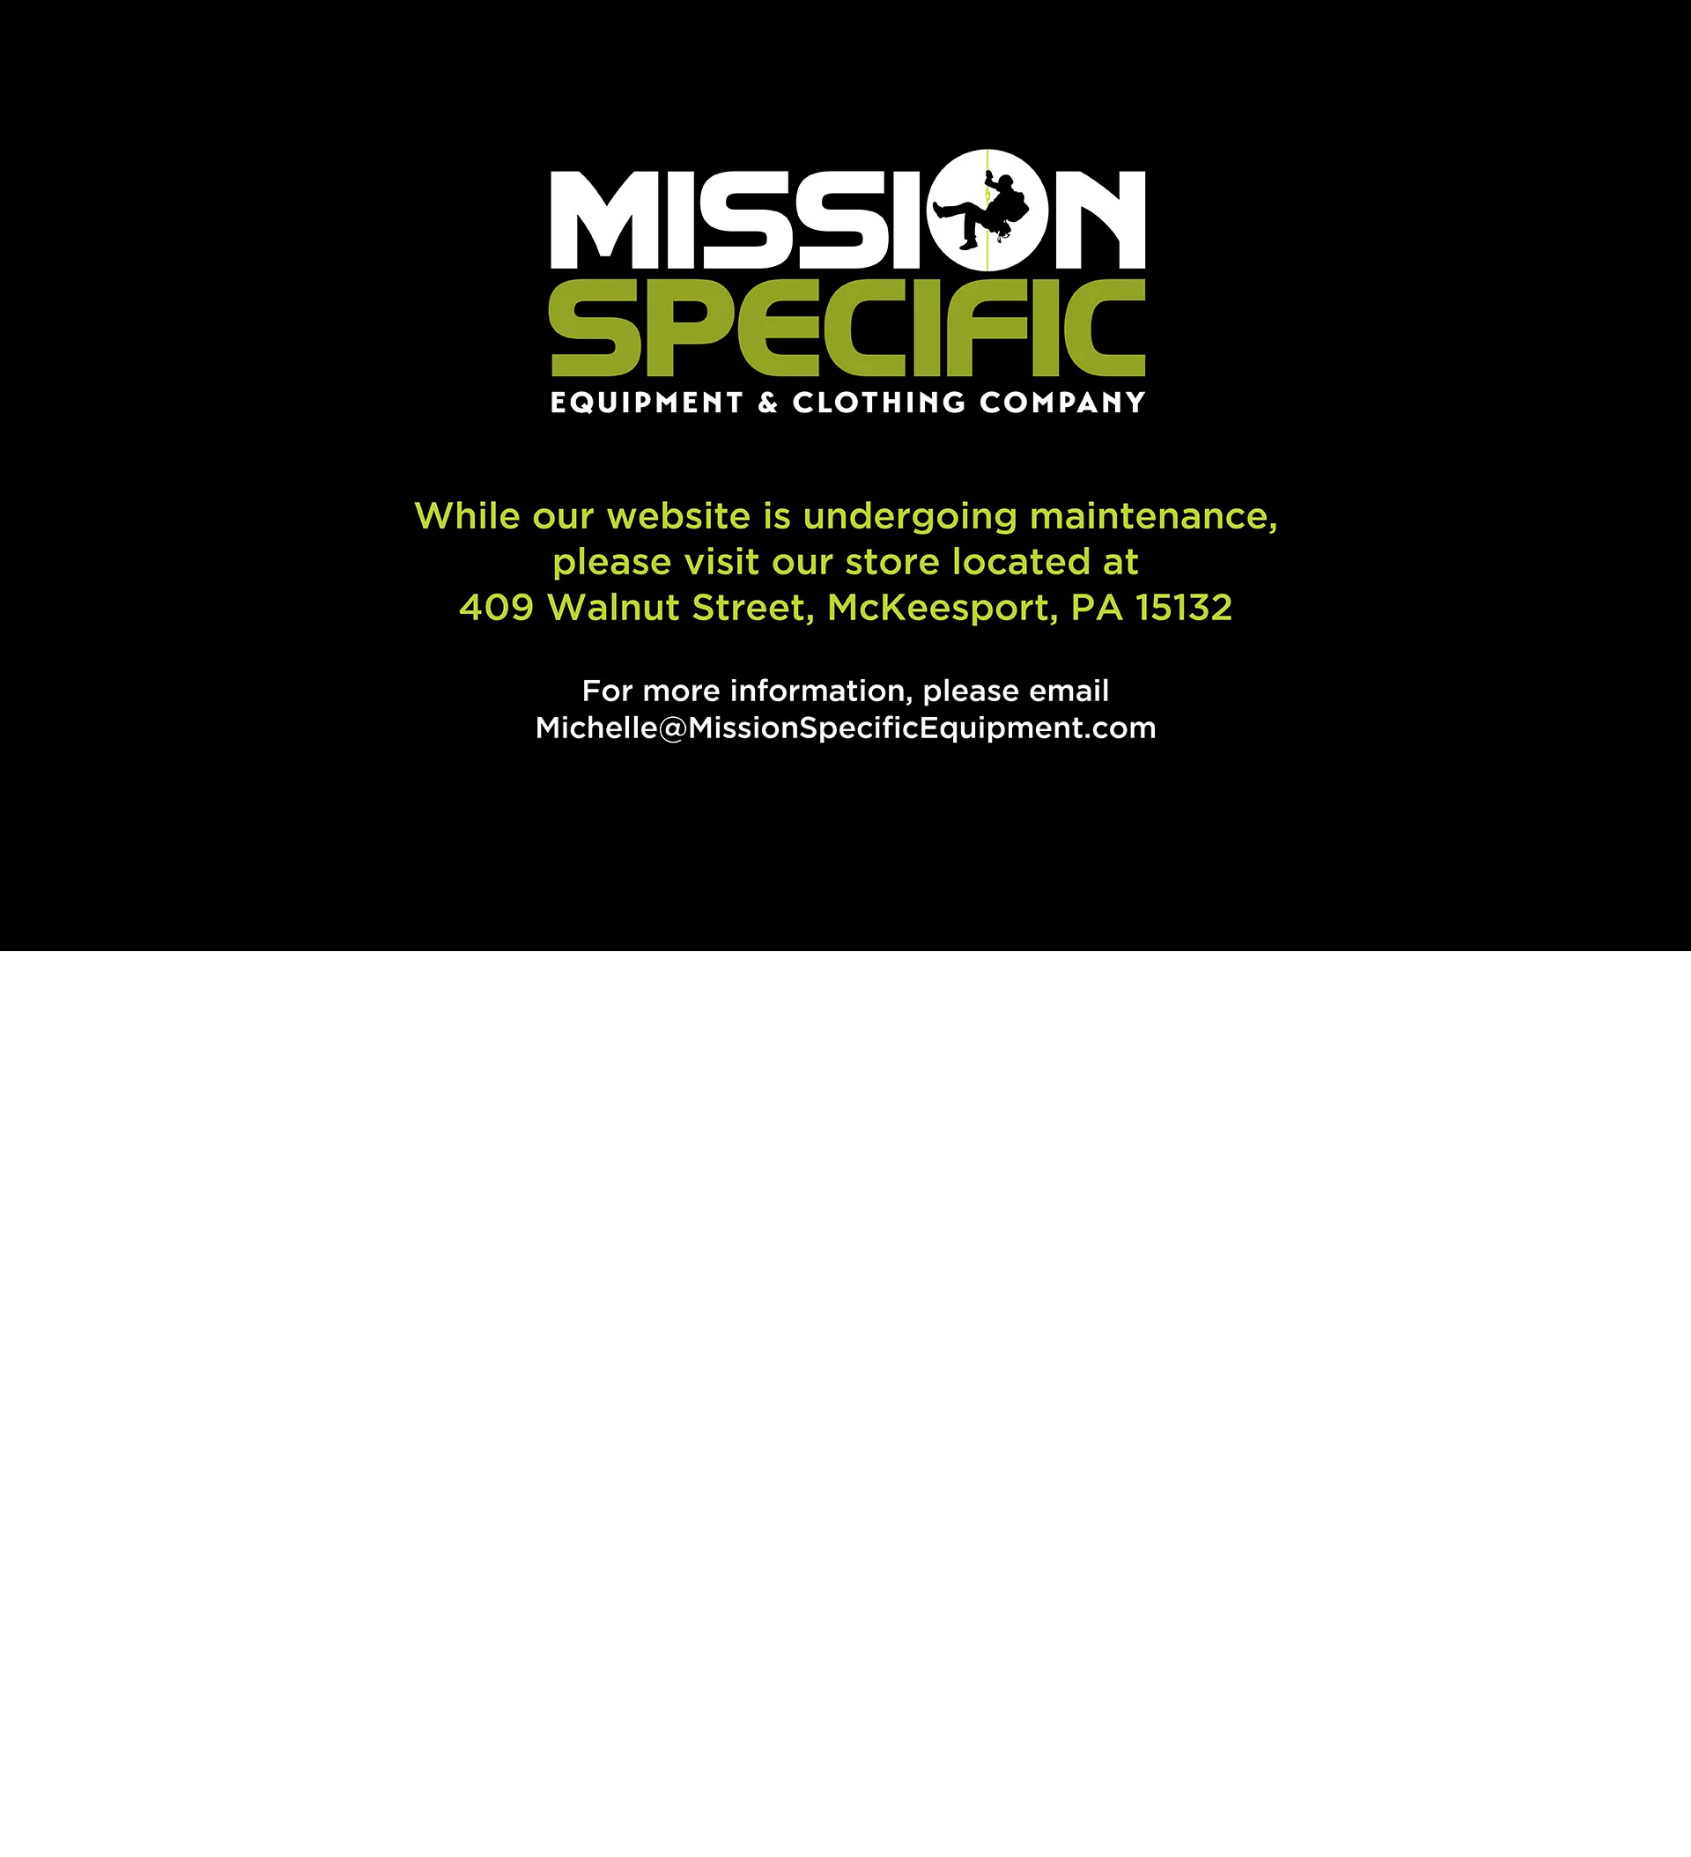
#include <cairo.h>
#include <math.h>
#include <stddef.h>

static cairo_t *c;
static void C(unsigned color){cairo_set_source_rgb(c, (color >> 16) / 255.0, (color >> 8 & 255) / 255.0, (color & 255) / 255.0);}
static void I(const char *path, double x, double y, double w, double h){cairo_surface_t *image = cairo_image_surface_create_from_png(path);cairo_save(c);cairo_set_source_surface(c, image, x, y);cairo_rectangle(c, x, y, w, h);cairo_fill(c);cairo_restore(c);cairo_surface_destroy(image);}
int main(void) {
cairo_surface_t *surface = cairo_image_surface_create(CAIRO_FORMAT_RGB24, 1691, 1857);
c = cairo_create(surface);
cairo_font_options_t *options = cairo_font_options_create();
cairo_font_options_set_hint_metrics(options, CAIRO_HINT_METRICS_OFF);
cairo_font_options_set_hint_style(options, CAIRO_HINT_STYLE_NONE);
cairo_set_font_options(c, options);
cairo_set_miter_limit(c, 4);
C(0xffffff);
cairo_paint(c);
I("1.png",0,0,1691,952);
cairo_surface_write_to_png(surface, "o.png");
cairo_font_options_destroy(options);
cairo_destroy(c);
cairo_surface_destroy(surface);
return 0;
}
